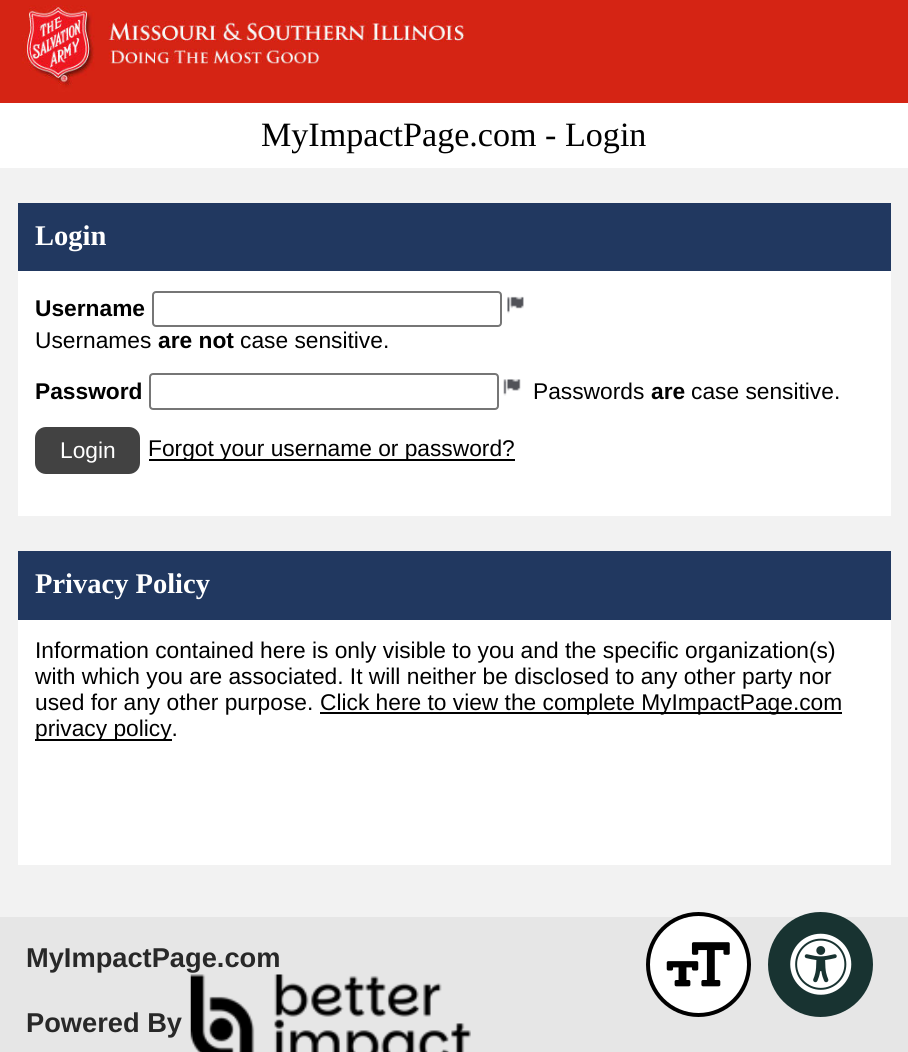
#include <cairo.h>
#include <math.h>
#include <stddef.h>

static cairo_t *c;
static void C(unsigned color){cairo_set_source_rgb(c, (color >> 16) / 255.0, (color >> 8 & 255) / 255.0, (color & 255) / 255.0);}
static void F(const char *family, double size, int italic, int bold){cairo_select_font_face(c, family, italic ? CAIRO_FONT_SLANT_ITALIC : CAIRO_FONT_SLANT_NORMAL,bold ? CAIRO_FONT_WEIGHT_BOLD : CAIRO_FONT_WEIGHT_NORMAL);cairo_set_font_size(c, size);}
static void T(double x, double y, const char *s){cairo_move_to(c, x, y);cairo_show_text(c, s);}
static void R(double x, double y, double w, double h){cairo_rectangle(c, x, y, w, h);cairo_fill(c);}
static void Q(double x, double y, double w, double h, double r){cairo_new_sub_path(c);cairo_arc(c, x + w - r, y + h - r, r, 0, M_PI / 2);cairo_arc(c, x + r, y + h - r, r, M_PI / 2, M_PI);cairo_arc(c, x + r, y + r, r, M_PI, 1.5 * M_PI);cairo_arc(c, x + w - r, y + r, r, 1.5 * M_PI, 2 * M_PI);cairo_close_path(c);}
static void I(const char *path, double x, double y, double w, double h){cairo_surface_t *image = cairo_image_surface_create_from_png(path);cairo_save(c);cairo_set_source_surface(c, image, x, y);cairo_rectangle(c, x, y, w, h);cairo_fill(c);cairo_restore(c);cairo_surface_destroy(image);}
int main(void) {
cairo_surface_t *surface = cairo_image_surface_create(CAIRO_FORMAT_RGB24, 908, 1052);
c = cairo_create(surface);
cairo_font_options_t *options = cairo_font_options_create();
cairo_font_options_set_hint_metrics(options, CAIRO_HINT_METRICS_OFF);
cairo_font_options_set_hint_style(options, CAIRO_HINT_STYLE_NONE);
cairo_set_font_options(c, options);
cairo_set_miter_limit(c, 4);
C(0xf2f2f2);
cairo_paint(c);
I("1.png",0,0,908,103);
C(0xffffff);
R(0,103,908,65);
F("Liberation Serif",34.1,0,0);
C(0x000000);
T(261,146,"MyImpactPage.com - Login");
C(0x213860);
R(18,203,873,68);
F("Liberation Serif",28.5,0,1);
C(0xffffff);
T(35,245,"Login");
R(18,271,873,245);
F("Liberation Sans",22.75,0,1);
C(0x000000);
T(35,316,"Username");
Q(153,292,348,34,3);
C(0x767676);
cairo_stroke(c);
I("2.png",507,296,17,18);
F("Liberation Sans",22.75,0,0);
C(0x000000);
T(35,348,"Usernames");
F("Liberation Sans",22.75,0,1);
T(158,348,"are not");
F("Liberation Sans",22.75,0,0);
T(240,348,"case sensitive.");
F("Liberation Sans",22.75,0,1);
T(35,399,"Password");
Q(150,374,348,35,3);
C(0x767676);
cairo_stroke(c);
I("3.png",503,379,18,17);
F("Liberation Sans",22.75,0,0);
C(0x000000);
T(533,399,"Passwords");
F("Liberation Sans",22.75,0,1);
T(651,399,"are");
F("Liberation Sans",22.75,0,0);
T(691,399,"case sensitive.");
C(0x424242);
Q(36,428,103,45,10);
cairo_fill_preserve(c);
cairo_stroke(c);
C(0xffffff);
T(60,458,"Login");
C(0x000000);
R(149,459,366,2);
T(148,456,"Forgot your username or password?");
C(0x213860);
R(18,551,873,69);
F("Liberation Serif",28.5,0,1);
C(0xffffff);
T(35,593,"Privacy Policy");
R(18,620,873,245);
F("Liberation Sans",22.75,0,0);
C(0x000000);
T(35,658,"Information contained here is only visible to you and the specific organization(s)");
T(35,684,"with which you are associated. It will neither be disclosed to any other party nor");
T(35,710,"used for any other purpose.");
R(320,712,522,2);
T(320,710,"Click here to view the complete MyImpactPage.com");
R(35,739,137,2);
T(35,736,"privacy policy.");
C(0xe6e6e6);
R(0,917,908,135);
F("Liberation Sans",27.25,0,1);
C(0x282828);
T(26,967,"MyImpactPage.com");
T(26,1032,"Powered By");
I("4.png",190,974,281,78);
C(0xffffff);
cairo_arc(c,698.5,964.5,50.5,0,2 * M_PI);
cairo_fill_preserve(c);
C(0x000000);
cairo_set_line_width(c,4);
cairo_stroke(c);
I("5.png",666,942,64,45);
C(0x183331);
cairo_arc(c,820.5,964.5,52.5,0,2 * M_PI);
cairo_fill(c);
I("6.png",790,933,62,62);
cairo_surface_write_to_png(surface, "o.png");
cairo_font_options_destroy(options);
cairo_destroy(c);
cairo_surface_destroy(surface);
return 0;
}
